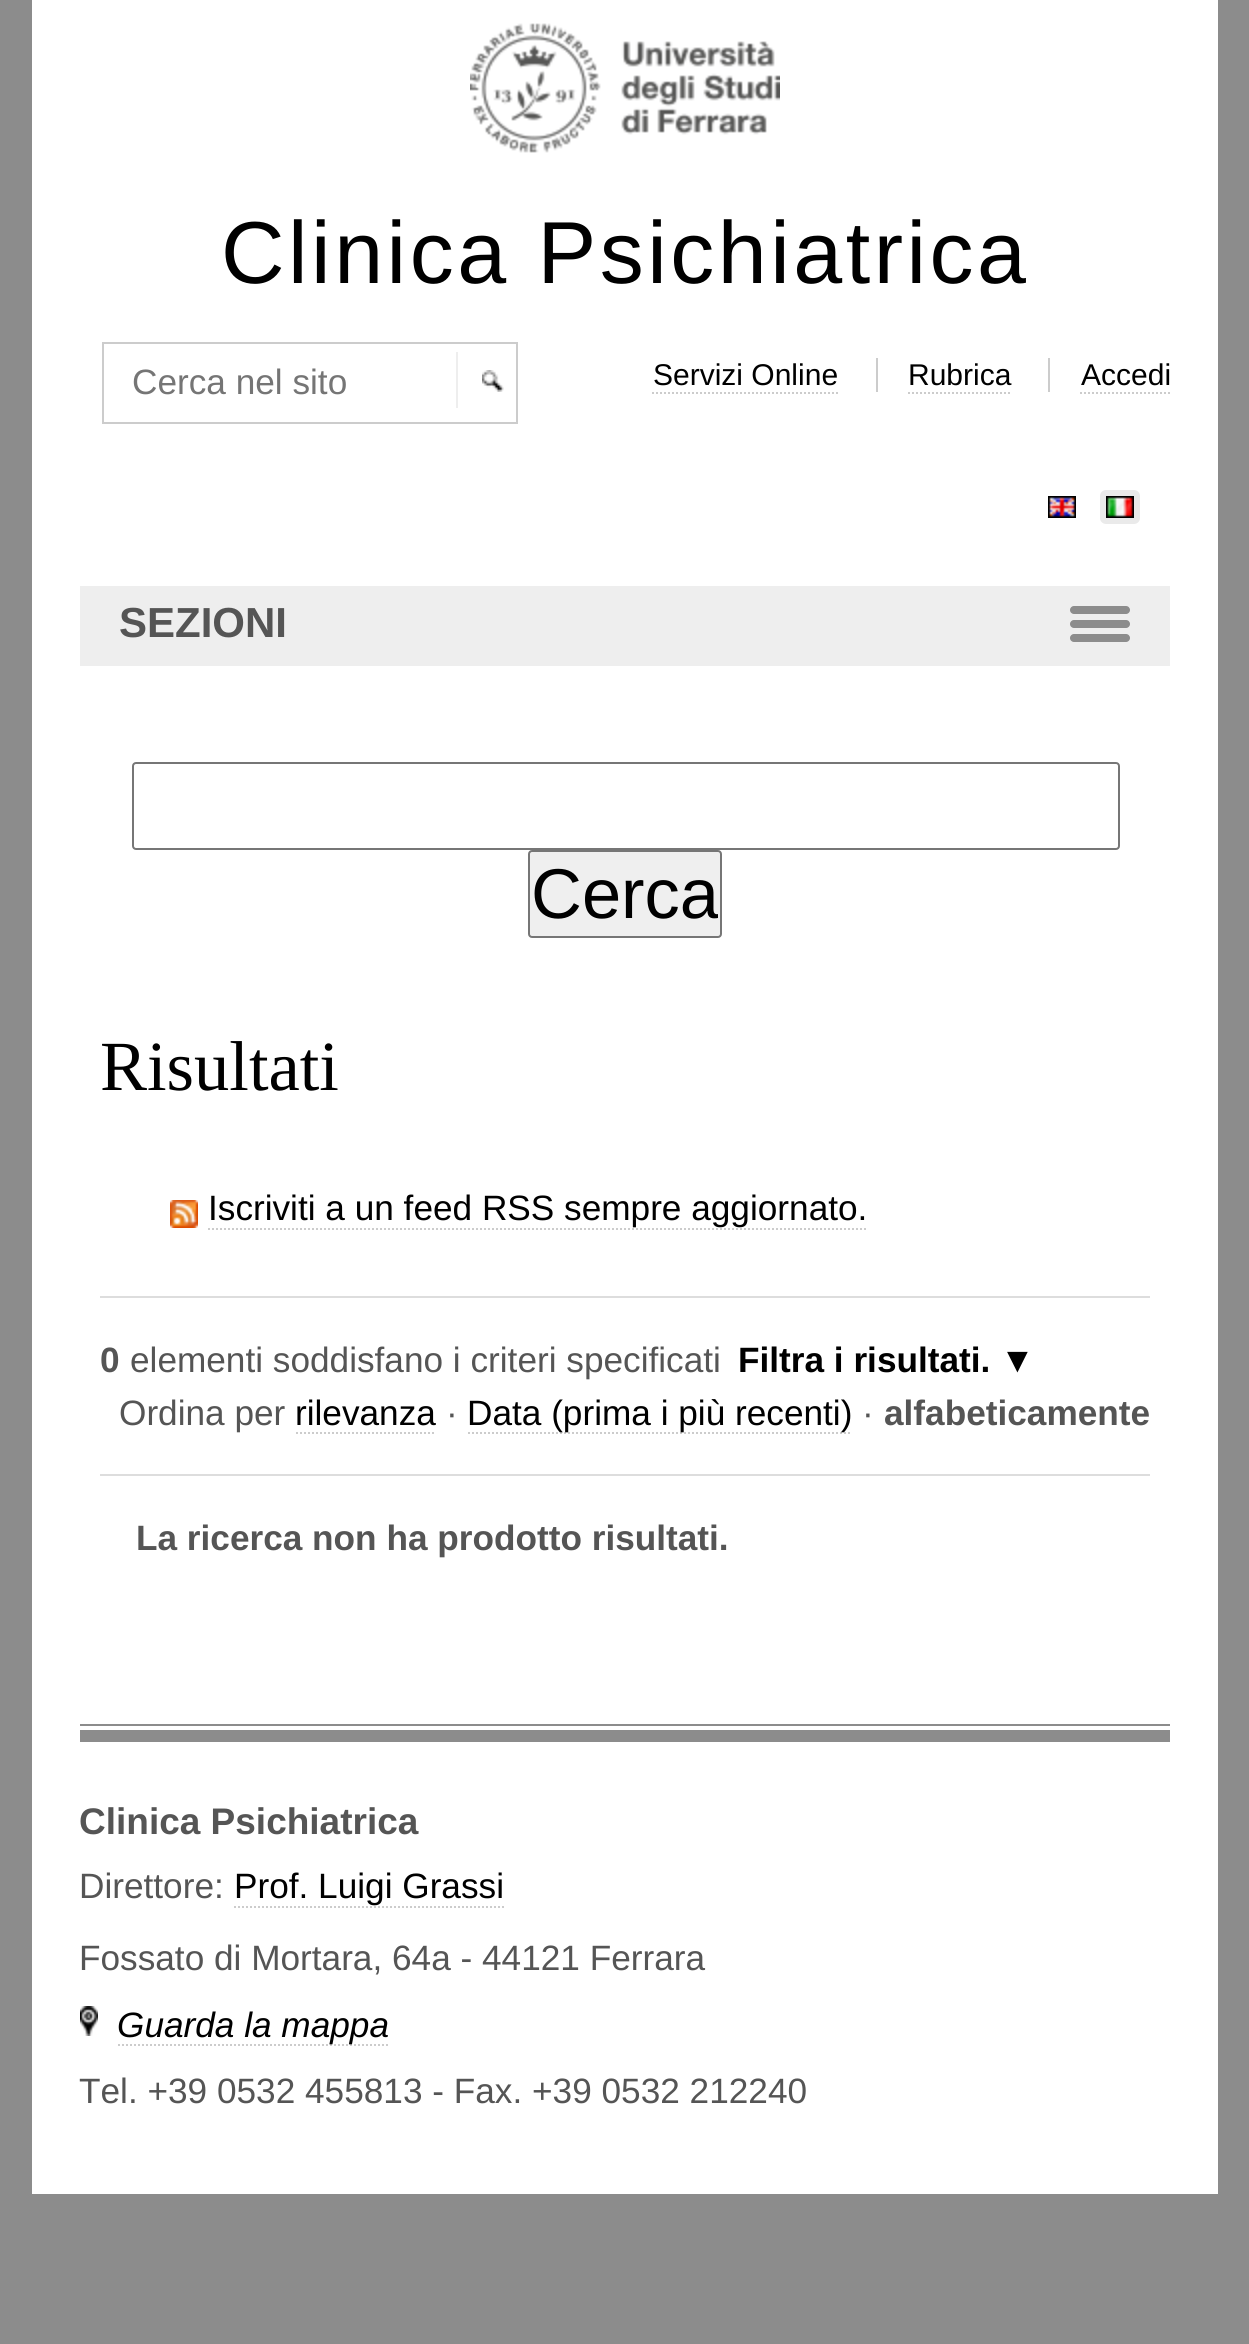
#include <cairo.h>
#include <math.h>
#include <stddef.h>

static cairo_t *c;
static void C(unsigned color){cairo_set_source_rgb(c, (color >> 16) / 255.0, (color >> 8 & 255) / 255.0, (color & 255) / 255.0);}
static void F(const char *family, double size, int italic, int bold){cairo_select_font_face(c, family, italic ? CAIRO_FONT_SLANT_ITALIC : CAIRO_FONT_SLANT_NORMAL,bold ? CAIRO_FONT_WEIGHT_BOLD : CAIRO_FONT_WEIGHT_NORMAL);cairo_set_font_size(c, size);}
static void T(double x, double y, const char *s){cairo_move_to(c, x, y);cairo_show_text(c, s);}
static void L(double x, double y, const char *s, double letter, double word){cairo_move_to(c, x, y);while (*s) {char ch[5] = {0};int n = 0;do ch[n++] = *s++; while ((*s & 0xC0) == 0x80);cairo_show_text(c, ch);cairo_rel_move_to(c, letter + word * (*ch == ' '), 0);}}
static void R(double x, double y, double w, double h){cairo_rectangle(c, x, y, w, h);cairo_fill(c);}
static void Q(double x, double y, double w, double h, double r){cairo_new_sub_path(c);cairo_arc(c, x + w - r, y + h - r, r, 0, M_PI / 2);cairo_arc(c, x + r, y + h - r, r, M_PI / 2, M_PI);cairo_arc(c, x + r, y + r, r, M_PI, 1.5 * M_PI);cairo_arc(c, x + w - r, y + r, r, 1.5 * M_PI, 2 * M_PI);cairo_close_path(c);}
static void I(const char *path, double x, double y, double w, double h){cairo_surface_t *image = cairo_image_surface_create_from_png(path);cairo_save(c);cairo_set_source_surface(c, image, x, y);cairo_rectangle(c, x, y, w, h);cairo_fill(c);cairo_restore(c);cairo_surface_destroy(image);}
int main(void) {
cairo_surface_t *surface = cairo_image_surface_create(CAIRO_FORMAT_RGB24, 1249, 2344);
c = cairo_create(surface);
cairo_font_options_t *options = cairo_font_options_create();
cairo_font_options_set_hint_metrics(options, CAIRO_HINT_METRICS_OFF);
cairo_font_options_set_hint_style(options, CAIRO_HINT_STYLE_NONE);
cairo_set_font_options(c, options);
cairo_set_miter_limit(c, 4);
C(0x8c8c8c);
cairo_paint(c);
C(0xffffff);
R(32,0,1186,2194);
I("1.png",470,23,310,130);
F("Liberation Sans",88,0,0);
C(0x000000);
L(221,283,"Clinica Psichiatrica",3.5,0);
cairo_rectangle(c,103,343,414,80);
C(0xcccccc);
cairo_stroke(c);
F("Liberation Sans",35.2,0,0);
C(0x757575);
T(132,394,"Cerca nel sito");
I("2.png",482,370,22,22);
C(0xeeeeee);
R(456,352,2,56);
F("Liberation Sans",30,0,0);
C(0x000000);
T(653,385,"Servizi Online");
cairo_new_path(c);
cairo_move_to(c,652,393);
cairo_line_to(c,838,393);
C(0xcccccc);
cairo_set_dash(c,(double[]){2,2},2,0);
cairo_stroke(c);
C(0x000000);
T(908,385,"Rubrica");
C(0xcccccc);
R(876,358,2,34);
cairo_new_path(c);
cairo_move_to(c,908,393);
cairo_line_to(c,1010,393);
cairo_stroke(c);
C(0x000000);
T(1081,385,"Accedi");
C(0xcccccc);
R(1048,358,2,34);
cairo_new_path(c);
cairo_move_to(c,1080,393);
cairo_line_to(c,1170,393);
cairo_stroke(c);
I("3.png",1048,496,28,22);
C(0xeaeaea);
Q(1100,490,40,34,6);
cairo_fill(c);
I("4.png",1106,496,28,22);
C(0xeeeeee);
R(80,586,1090,80);
C(0x8c8c8c);
Q(1070,606,60,8,4);
cairo_fill(c);
Q(1070,620,60,8,4);
cairo_fill(c);
Q(1070,634,60,8,4);
cairo_fill(c);
F("Liberation Sans",42,0,1);
C(0x555555);
T(119,637,"SEZIONI");
Q(133,763,986,86,3);
C(0x767676);
cairo_set_dash(c,NULL,0,0);
cairo_stroke(c);
C(0xefefef);
Q(529,851,192,86,3);
cairo_fill_preserve(c);
C(0x767676);
cairo_stroke(c);
cairo_save(c);
cairo_rectangle(c,532,854,186,80);
cairo_clip(c);
F("Liberation Sans",70.5,0,0);
C(0x000000);
T(531,918,"Cerca");
cairo_restore(c);
F("Liberation Serif",70.5,0,0);
C(0x000000);
T(100,1090,"Risultati");
I("5.png",170,1200,28,28);
F("Liberation Sans",35.2,0,0);
T(208,1220,"Iscriviti a un feed RSS sempre aggiornato.");
cairo_new_path(c);
cairo_move_to(c,208,1229);
cairo_line_to(c,868,1229);
C(0xcccccc);
cairo_set_dash(c,(double[]){2,2},2,0);
cairo_stroke(c);
C(0xdddddd);
R(100,1296,1050,2);
R(100,1474,1050,2);
F("Liberation Sans",35.2,0,1);
C(0x555555);
T(100,1372,"0");
F("Liberation Sans",35.2,0,0);
T(130,1372,"elementi soddisfano i criteri specificati");
F("Liberation Sans",35.2,0,1);
C(0x000000);
T(738,1372,"Filtra i risultati. ▼");
F("Liberation Sans",35.2,0,0);
C(0x555555);
T(119,1425,"Ordina per");
C(0x000000);
T(295,1425,"rilevanza");
cairo_new_path(c);
cairo_move_to(c,296,1433);
cairo_line_to(c,436,1433);
C(0xcccccc);
cairo_stroke(c);
C(0x555555);
T(446,1425,"·");
cairo_new_path(c);
cairo_move_to(c,468,1433);
cairo_line_to(c,852,1433);
C(0xcccccc);
cairo_stroke(c);
C(0x000000);
T(467,1425,"Data (prima i più recenti)");
C(0x555555);
T(862,1425,"·");
F("Liberation Sans",35.2,0,1);
T(884,1425,"alfabeticamente");
T(136,1550,"La ricerca non ha prodotto risultati.");
C(0x8c8c8c);
R(80,1724,1090,2);
R(80,1730,1090,12);
F("Liberation Sans",37,0,1);
C(0x555555);
T(79,1834,"Clinica Psichiatrica");
F("Liberation Sans",35.2,0,0);
T(79,1898,"Direttore:");
C(0x000000);
T(234,1898,"Prof. Luigi Grassi");
cairo_new_path(c);
cairo_move_to(c,234,1907);
cairo_line_to(c,504,1907);
C(0xcccccc);
cairo_stroke(c);
C(0x555555);
T(79,1970,"Fossato di Mortara, 64a - 44121 Ferrara");
I("6.png",80,2006,18,30);
cairo_new_path(c);
cairo_move_to(c,118,2045);
cairo_line_to(c,390,2045);
C(0xcccccc);
cairo_stroke(c);
F("Liberation Sans",35.2,1,0);
C(0x000000);
T(117,2037,"Guarda la mappa");
F("Liberation Sans",35.2,0,0);
C(0x555555);
T(79,2103,"Tel. +39 0532 455813 - Fax. +39 0532 212240");
cairo_surface_write_to_png(surface, "o.png");
cairo_font_options_destroy(options);
cairo_destroy(c);
cairo_surface_destroy(surface);
return 0;
}
